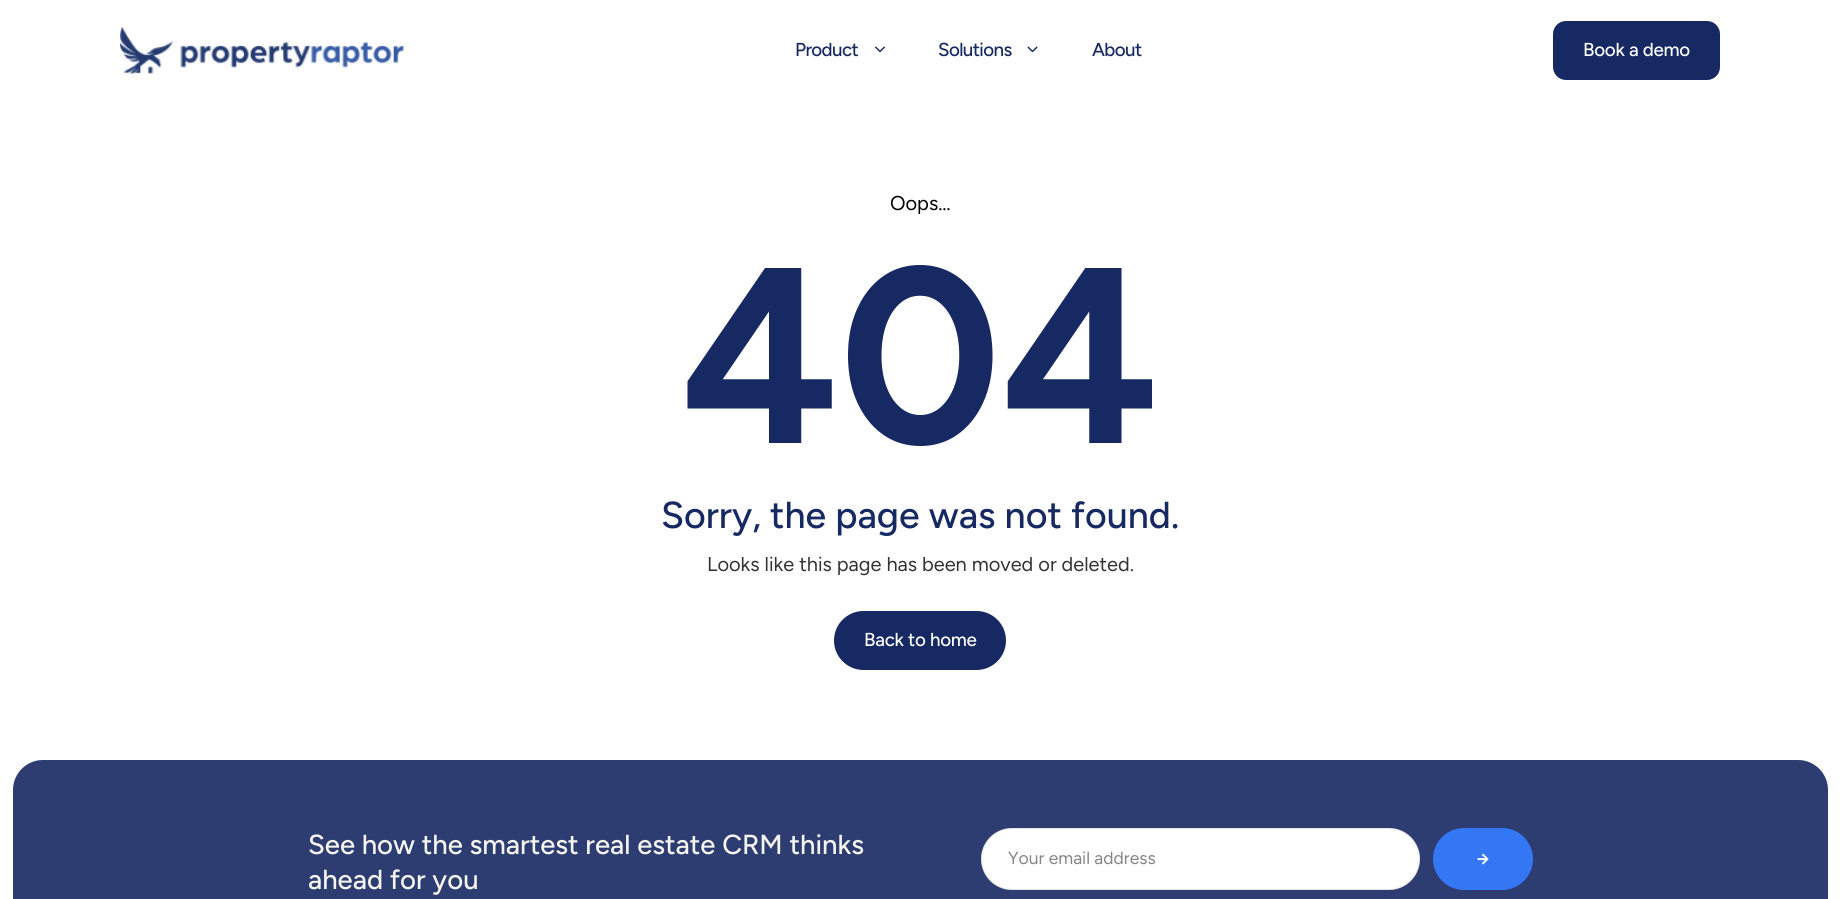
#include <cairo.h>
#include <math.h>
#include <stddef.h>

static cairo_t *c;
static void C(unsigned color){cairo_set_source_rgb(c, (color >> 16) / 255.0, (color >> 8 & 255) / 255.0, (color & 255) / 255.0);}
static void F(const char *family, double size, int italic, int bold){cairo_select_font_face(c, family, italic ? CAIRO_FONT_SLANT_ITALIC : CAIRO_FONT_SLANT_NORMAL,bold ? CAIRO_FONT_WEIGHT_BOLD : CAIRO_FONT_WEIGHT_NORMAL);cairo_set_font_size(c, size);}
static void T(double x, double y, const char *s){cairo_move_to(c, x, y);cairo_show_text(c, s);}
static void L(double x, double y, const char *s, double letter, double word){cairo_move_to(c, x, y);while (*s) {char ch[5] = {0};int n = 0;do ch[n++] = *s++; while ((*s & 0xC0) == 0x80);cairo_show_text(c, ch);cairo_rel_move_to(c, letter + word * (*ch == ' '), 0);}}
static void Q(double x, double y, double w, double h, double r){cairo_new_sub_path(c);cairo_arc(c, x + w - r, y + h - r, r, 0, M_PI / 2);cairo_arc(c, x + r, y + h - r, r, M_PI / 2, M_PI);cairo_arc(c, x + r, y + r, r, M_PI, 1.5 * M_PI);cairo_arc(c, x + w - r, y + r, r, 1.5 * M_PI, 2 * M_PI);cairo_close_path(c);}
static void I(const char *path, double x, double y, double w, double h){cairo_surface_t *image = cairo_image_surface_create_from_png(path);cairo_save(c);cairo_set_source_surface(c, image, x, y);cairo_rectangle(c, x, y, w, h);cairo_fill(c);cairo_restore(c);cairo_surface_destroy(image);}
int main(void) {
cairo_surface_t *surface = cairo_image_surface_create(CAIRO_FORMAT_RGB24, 1840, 899);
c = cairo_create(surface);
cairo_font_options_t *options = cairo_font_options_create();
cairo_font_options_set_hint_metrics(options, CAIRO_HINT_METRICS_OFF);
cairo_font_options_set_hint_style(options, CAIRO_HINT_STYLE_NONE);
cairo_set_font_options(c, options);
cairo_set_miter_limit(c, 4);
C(0xffffff);
cairo_paint(c);
I("1.png",120,27,284,48);
F("Figtree Medium",18.75,0,0);
C(0x172963);
L(795,56,"Product",-.6,0);
I("2.png",875,46,10,7);
L(938,56,"Solutions",-.6,0);
I("3.png",1027,46,11,7);
L(1092,56,"About",-.6,0);
Q(1553,21,167,59,13);
cairo_fill(c);
C(0xffffff);
L(1583,56,"Book a demo",-.25,0);
F("Figtree",20,0,0);
C(0x000000);
T(890,210,"Oops…");
F("Figtree",250,0,1);
C(0x172963);
T(681,443,"404");
F("Figtree Medium",37.5,0,0);
T(661,528,"Sorry, the page was not found.");
F("Figtree",20,0,0);
C(0x333333);
T(707,571,"Looks like this page has been moved or deleted.");
C(0x172963);
Q(834,611,172,59,29.5);
cairo_fill(c);
F("Figtree Medium",18.75,0,0);
C(0xffffff);
L(864,646,"Back to home",-.25,0);
C(0x172963);
Q(13,760,1815,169,30);
cairo_fill(c);
cairo_set_source_rgba(c,0.965,0.961,0.949,0.1);
Q(13,760,1815,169,30);
cairo_fill(c);
F("Figtree Medium",27.5,0,0);
C(0xf6f5f2);
T(308,854,"See how the smartest real estate CRM thinks");
T(308,889,"ahead for you");
C(0xffffff);
Q(981,828,439,62,31);
cairo_fill(c);
Q(981.5,828.5,438,61,30.5);
cairo_set_source_rgba(c,0,0,0,0.1);
cairo_set_line_width(c,1);
cairo_stroke(c);
F("Figtree",17.5,0,0);
C(0x858585);
T(1008,864,"Your email address");
C(0x3477f5);
Q(1433,828,100,62,31);
cairo_fill(c);
I("4.png",1477,853,12,12);
cairo_surface_write_to_png(surface, "o.png");
cairo_font_options_destroy(options);
cairo_destroy(c);
cairo_surface_destroy(surface);
return 0;
}
